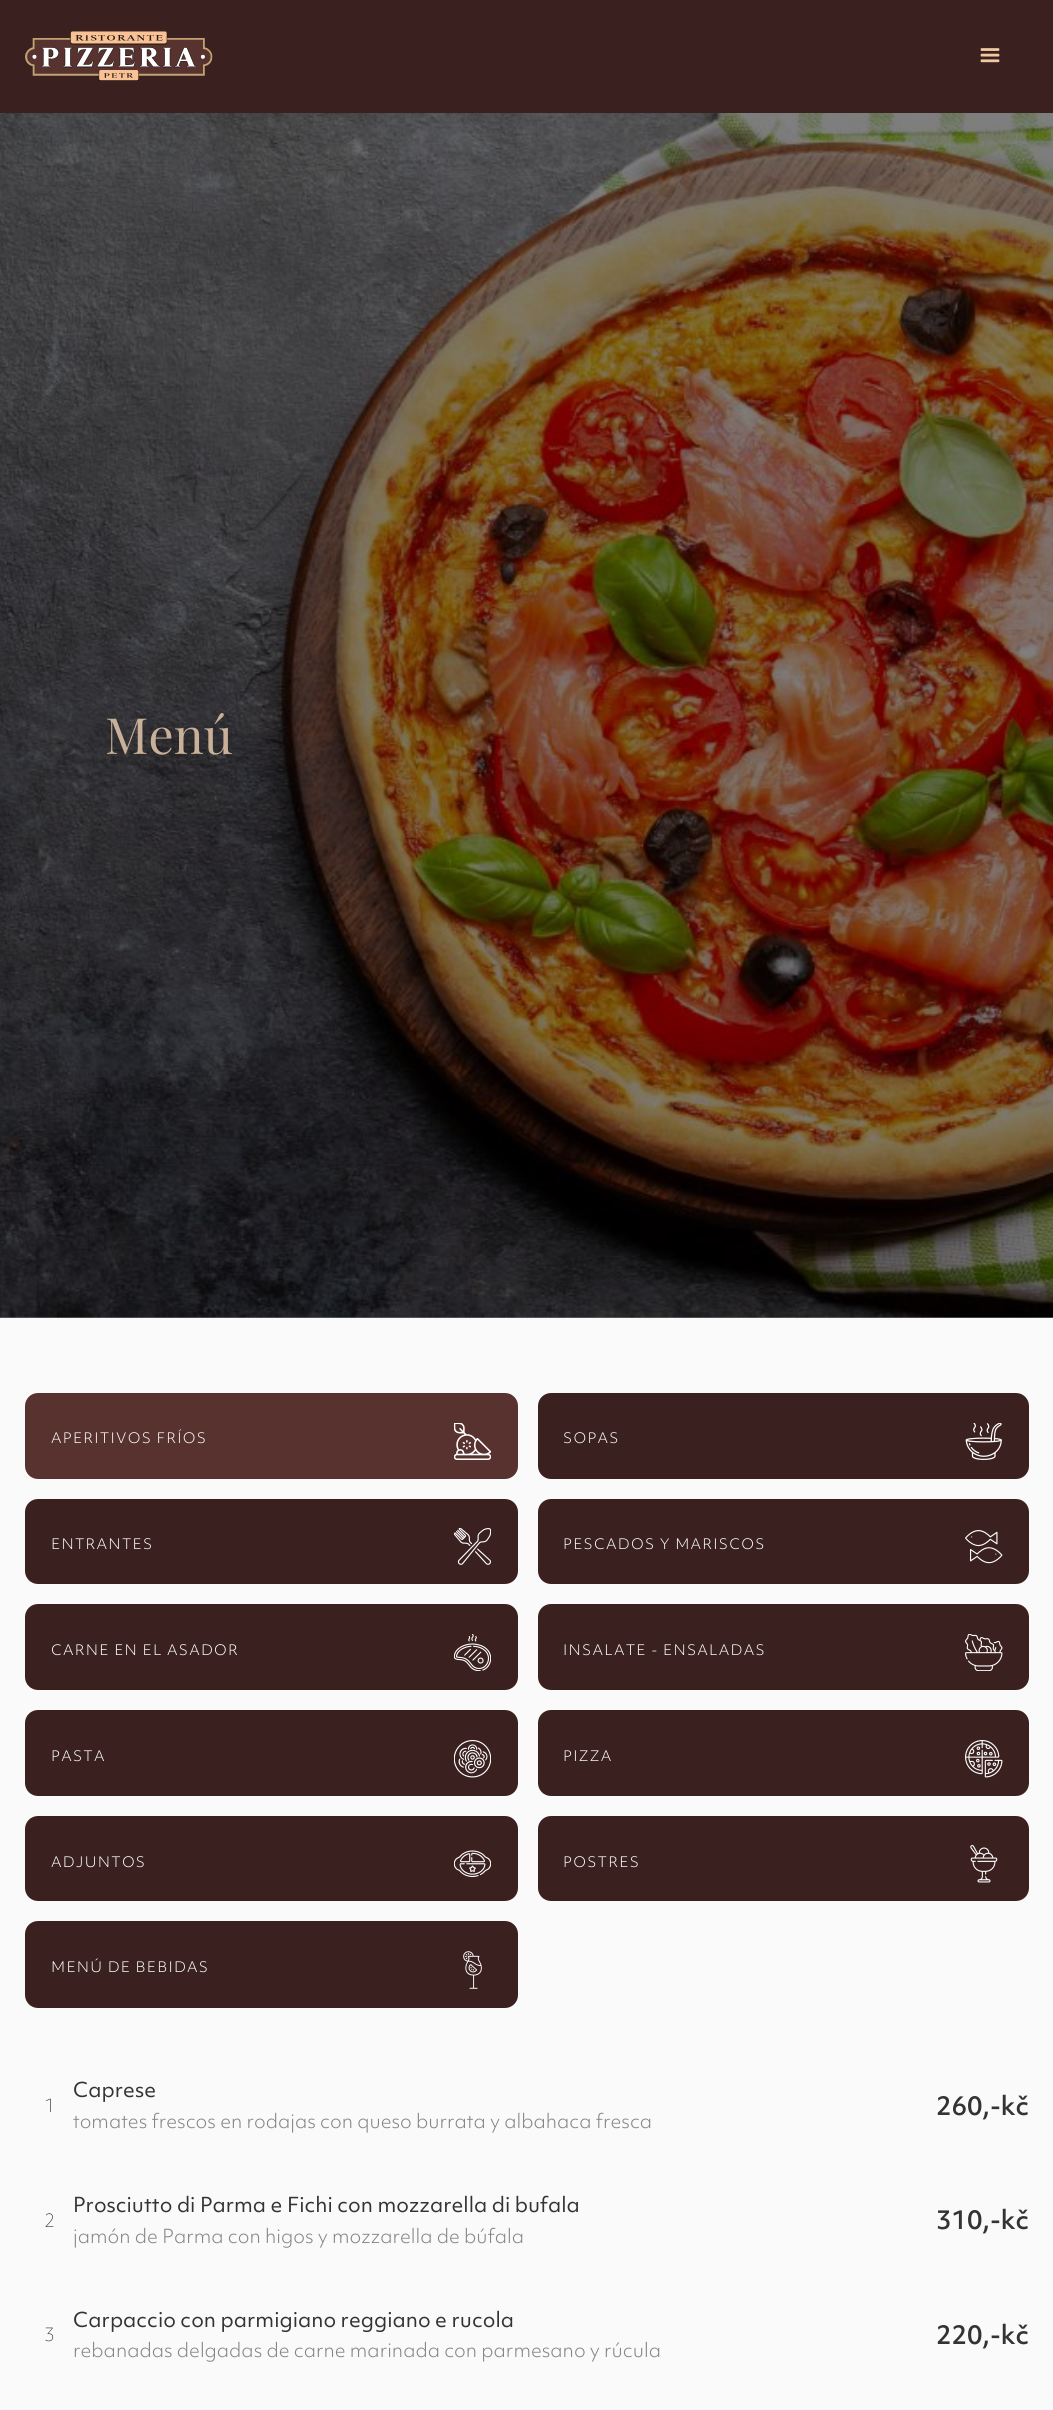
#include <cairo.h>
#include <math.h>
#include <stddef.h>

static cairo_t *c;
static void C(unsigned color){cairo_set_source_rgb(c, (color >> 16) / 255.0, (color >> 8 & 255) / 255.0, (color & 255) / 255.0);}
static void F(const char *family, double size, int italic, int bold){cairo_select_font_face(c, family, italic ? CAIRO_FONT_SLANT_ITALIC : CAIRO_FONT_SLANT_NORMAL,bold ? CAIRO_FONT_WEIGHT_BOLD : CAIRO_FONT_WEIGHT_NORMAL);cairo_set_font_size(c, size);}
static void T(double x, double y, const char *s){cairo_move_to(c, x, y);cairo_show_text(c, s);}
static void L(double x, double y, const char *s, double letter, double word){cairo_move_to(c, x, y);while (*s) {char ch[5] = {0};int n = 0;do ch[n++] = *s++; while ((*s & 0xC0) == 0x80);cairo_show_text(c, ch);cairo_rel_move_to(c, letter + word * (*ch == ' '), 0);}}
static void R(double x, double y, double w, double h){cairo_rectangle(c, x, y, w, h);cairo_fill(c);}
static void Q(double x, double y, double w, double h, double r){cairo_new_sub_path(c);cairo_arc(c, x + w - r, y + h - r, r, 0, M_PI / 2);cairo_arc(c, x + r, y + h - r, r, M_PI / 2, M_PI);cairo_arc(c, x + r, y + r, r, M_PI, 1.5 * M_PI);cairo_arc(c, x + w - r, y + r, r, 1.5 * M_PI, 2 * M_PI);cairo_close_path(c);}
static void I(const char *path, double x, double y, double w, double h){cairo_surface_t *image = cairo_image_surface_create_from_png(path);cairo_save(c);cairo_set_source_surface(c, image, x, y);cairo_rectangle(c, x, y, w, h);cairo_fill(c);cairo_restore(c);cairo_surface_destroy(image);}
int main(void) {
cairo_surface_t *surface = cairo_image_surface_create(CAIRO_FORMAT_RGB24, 1053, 2410);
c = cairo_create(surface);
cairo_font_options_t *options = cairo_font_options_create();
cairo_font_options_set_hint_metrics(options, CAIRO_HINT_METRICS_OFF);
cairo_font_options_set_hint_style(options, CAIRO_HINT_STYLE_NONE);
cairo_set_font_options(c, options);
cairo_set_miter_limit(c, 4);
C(0x808080);
cairo_paint(c);
C(0x3a211f);
R(0,0,1053,113);
I("1.png",25,31,188,50);
cairo_rectangle(c,951.5,18.5,77,76);
C(0x3a1f22);
cairo_set_line_width(c,1);
cairo_stroke(c);
I("2.png",980,48,20,15);
I("3.png",0,113,1053,1205);
F("Playfair Display",50,0,0);
C(0xc9b098);
T(105,754,"Menú");
C(0xfafafa);
R(0,1318,1053,1092);
C(0x57322f);
Q(25,1393,493,86,13);
cairo_fill(c);
F("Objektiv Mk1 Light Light",14,0,0);
C(0xfafafa);
L(51,1443,"APERITIVOS FRÍOS",1.25,0);
I("4.png",454,1423,37,37);
C(0x3a211f);
Q(538,1393,491,86,13);
cairo_fill(c);
C(0xfafafa);
L(563,1443,"SOPAS",1.25,0);
I("5.png",965,1423,37,37);
C(0x3a211f);
Q(25,1499,493,85,13);
cairo_fill(c);
C(0xfafafa);
L(51,1549,"ENTRANTES",1.25,0);
I("6.png",454,1528,37,37);
C(0x3a211f);
Q(538,1499,491,85,13);
cairo_fill(c);
C(0xfafafa);
L(563,1549,"PESCADOS Y MARISCOS",1.25,0);
I("7.png",965,1530,38,34);
C(0x3a211f);
Q(25,1604,493,86,13);
cairo_fill(c);
C(0xfafafa);
L(51,1655,"CARNE EN EL ASADOR",1.25,0);
I("8.png",454,1634,37,37);
C(0x3a211f);
Q(538,1604,491,86,13);
cairo_fill(c);
C(0xfafafa);
L(563,1655,"INSALATE - ENSALADAS",1.25,0);
I("9.png",965,1634,38,37);
C(0x3a211f);
Q(25,1710,493,86,13);
cairo_fill(c);
C(0xfafafa);
L(51,1761,"PASTA",1.25,0);
I("10.png",454,1740,37,38);
C(0x3a211f);
Q(538,1710,491,86,13);
cairo_fill(c);
C(0xfafafa);
L(563,1761,"PIZZA",1.25,0);
I("11.png",965,1740,38,38);
C(0x3a211f);
Q(25,1816,493,85,13);
cairo_fill(c);
C(0xfafafa);
L(51,1867,"ADJUNTOS",1.25,0);
I("12.png",454,1850,37,27);
C(0x3a211f);
Q(538,1816,491,85,13);
cairo_fill(c);
C(0xfafafa);
L(563,1867,"POSTRES",1.25,0);
I("13.png",970,1845,28,38);
C(0x3a211f);
Q(25,1921,493,87,13);
cairo_fill(c);
C(0xfafafa);
L(51,1972,"MENÚ DE BEBIDAS",1.25,0);
I("14.png",463,1951,19,38);
F("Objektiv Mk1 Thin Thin",18,0,0);
C(0x333333);
T(44,2112,"1");
F("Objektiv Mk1",20,0,0);
T(73,2097,"Caprese");
F("Objektiv Mk1 Light Light",18.75,0,0);
C(0x858585);
T(73,2128,"tomates frescos en rodajas con queso burrata y albahaca fresca");
F("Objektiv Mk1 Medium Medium",25,0,0);
C(0x333333);
T(936,2115,"260,-kč");
F("Objektiv Mk1 Thin Thin",18,0,0);
T(44,2227,"2");
F("Objektiv Mk1",20,0,0);
T(73,2212,"Prosciutto di Parma e Fichi con mozzarella di bufala");
F("Objektiv Mk1 Light Light",18.75,0,0);
C(0x858585);
T(73,2243,"jamón de Parma con higos y mozzarella de búfala");
F("Objektiv Mk1 Medium Medium",25,0,0);
C(0x333333);
T(936,2229,"310,-kč");
F("Objektiv Mk1 Thin Thin",18,0,0);
T(44,2341,"3");
F("Objektiv Mk1",20,0,0);
T(73,2327,"Carpaccio con parmigiano reggiano e rucola");
F("Objektiv Mk1 Light Light",18.75,0,0);
C(0x858585);
T(73,2357,"rebanadas delgadas de carne marinada con parmesano y rúcula");
F("Objektiv Mk1 Medium Medium",25,0,0);
C(0x333333);
T(936,2344,"220,-kč");
cairo_surface_write_to_png(surface, "o.png");
cairo_font_options_destroy(options);
cairo_destroy(c);
cairo_surface_destroy(surface);
return 0;
}
